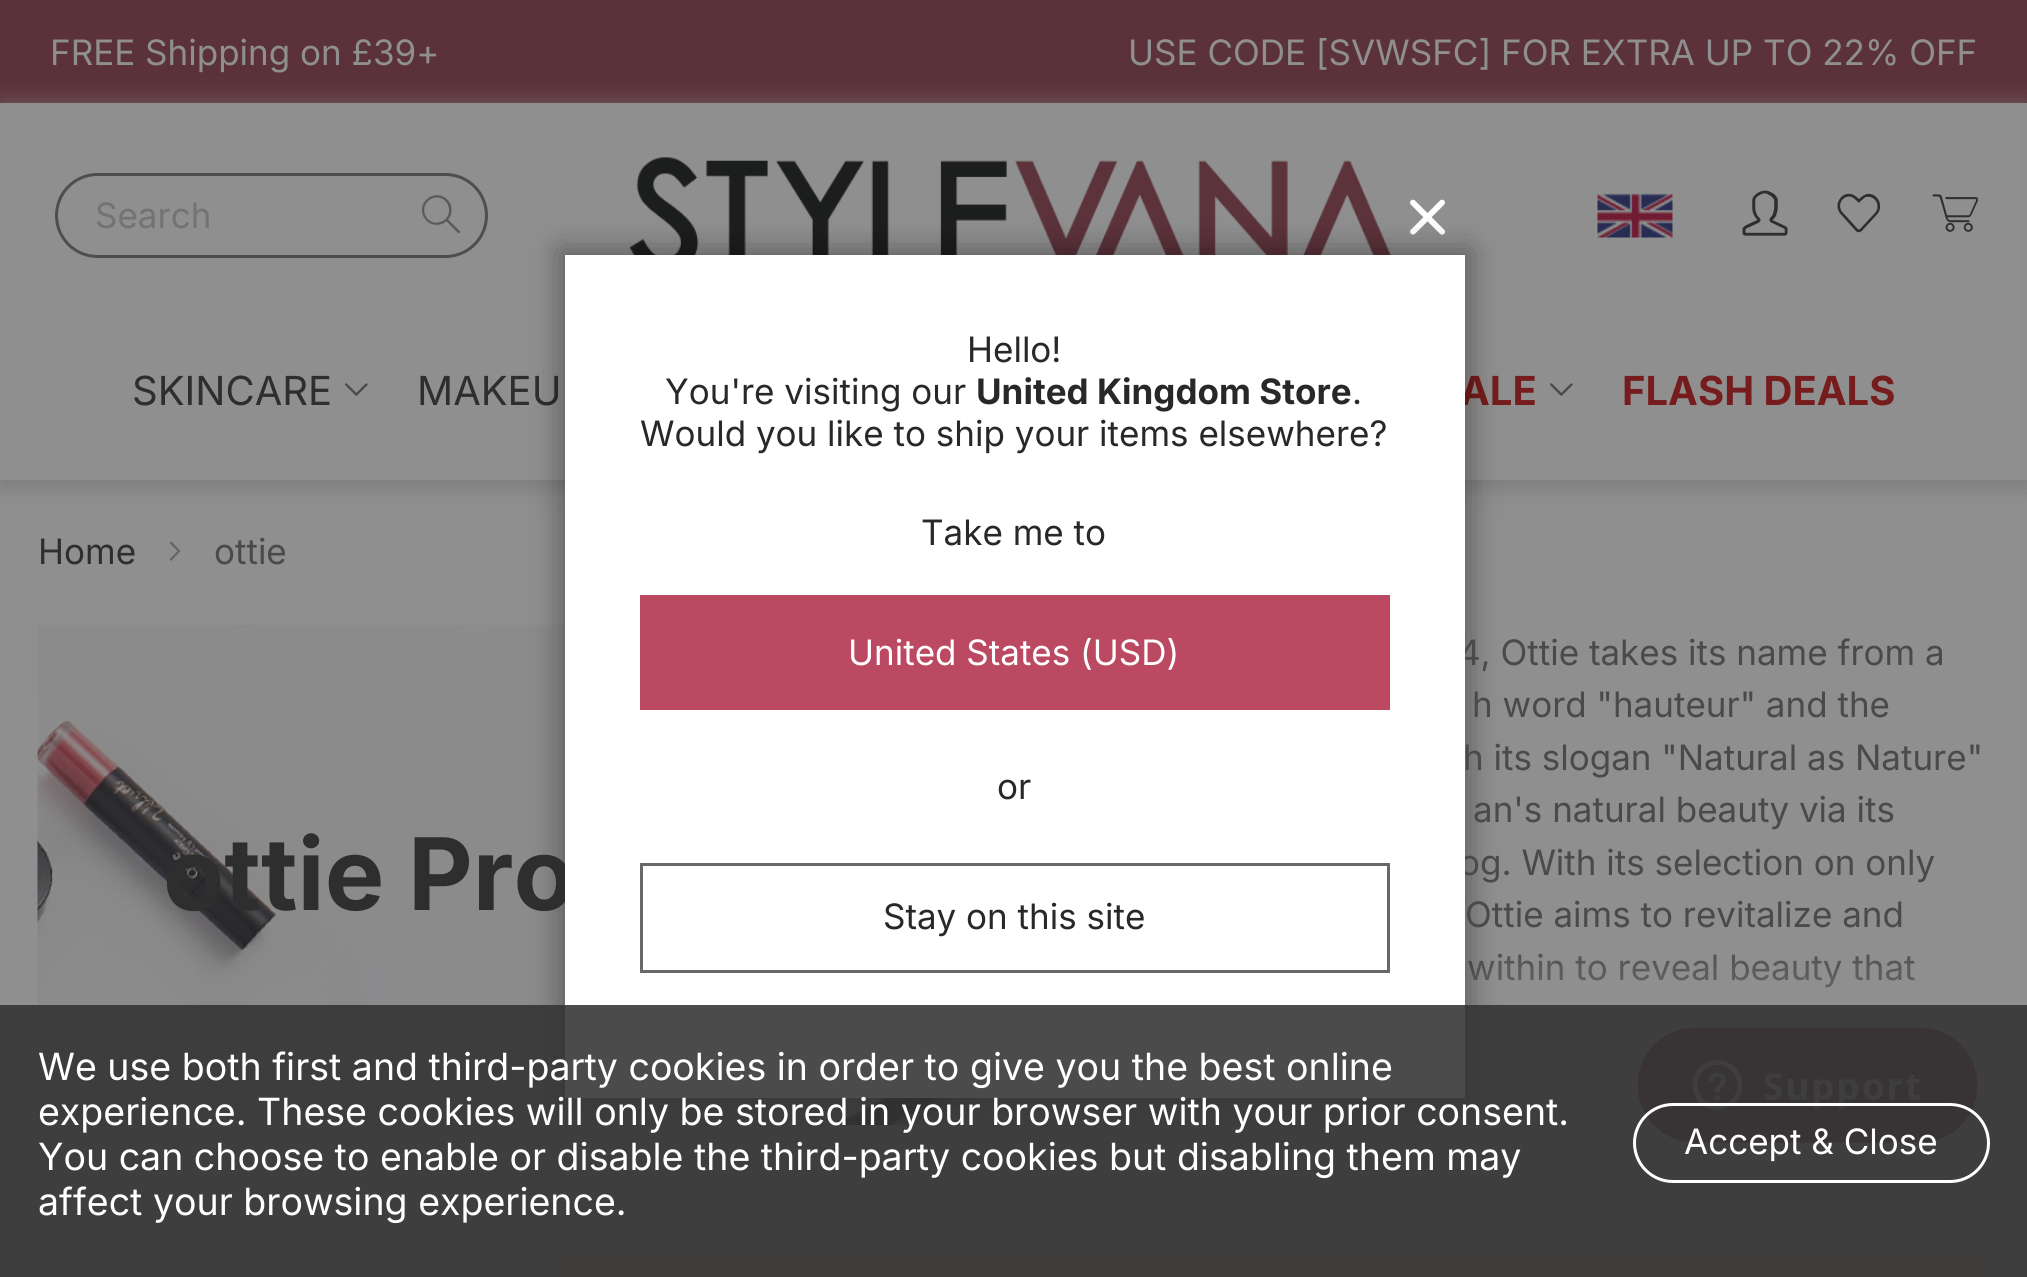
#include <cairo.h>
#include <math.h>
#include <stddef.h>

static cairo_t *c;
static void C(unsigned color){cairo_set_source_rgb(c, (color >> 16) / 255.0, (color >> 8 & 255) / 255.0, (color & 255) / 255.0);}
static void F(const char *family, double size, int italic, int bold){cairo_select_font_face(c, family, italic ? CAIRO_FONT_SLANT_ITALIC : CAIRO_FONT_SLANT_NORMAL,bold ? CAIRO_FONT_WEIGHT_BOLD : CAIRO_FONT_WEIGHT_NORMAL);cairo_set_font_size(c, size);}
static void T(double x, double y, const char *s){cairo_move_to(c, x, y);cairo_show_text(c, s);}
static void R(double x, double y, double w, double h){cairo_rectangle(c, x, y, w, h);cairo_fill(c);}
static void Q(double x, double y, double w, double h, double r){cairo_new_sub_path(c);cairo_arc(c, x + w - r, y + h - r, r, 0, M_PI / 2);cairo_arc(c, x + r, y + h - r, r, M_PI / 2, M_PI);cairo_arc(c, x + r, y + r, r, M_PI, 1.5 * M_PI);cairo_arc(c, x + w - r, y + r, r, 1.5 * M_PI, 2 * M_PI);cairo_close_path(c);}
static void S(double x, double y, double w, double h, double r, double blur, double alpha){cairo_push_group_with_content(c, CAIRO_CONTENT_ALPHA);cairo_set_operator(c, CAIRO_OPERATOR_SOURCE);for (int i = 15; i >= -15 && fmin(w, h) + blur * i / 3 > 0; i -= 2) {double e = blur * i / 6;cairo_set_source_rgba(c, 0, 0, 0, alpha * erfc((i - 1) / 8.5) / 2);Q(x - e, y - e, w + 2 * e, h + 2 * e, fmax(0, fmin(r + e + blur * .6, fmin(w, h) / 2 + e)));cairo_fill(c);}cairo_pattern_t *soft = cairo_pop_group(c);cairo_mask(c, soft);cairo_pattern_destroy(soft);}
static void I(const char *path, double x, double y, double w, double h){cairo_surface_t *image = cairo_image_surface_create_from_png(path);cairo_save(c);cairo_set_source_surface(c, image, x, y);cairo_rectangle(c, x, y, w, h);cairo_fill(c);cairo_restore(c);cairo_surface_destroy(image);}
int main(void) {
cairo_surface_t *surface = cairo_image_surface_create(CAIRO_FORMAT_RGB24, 2027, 1277);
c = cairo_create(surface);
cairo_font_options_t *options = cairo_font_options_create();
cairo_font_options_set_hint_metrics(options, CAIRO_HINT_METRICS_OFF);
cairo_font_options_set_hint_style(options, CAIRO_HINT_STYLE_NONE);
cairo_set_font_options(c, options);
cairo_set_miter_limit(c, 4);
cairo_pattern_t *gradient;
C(0x8f8f8f);
cairo_paint(c);
C(0x5c323a);
R(0,0,2027,103);
cairo_save(c);
cairo_set_fill_rule(c,CAIRO_FILL_RULE_EVEN_ODD);
cairo_new_path(c);
cairo_move_to(c,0,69);
cairo_line_to(c,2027,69);
cairo_line_to(c,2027,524);
cairo_line_to(c,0,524);
cairo_close_path(c);
cairo_move_to(c,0,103);
cairo_line_to(c,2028,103);
cairo_line_to(c,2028,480);
cairo_line_to(c,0,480);
cairo_close_path(c);
cairo_clip(c);
C(0x787878);
S(0,108,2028,377,0,12.5,1);
cairo_restore(c);
F("Inter",35,0,0);
C(0x8f8f8f);
T(50,65,"FREE Shipping on £39+");
T(1128,65,"USE CODE [SVWSFC] FOR EXTRA UP TO 22% OFF");
Q(56.5,174.5,430,82,41);
C(0x4e4e4e);
cairo_set_line_width(c,3);
cairo_stroke(c);
C(0x737373);
T(95,228,"Search");
I("1.png",421,195,39,39);
I("2.png",630,157,761,98);
I("3.png",1597,193,76,45);
I("4.png",1742,190,46,46);
I("5.png",1837,193,44,40);
I("6.png",1932,194,46,38);
F("Inter",40,0,0);
C(0x2e2e2e);
T(132,405,"SKINCARE");
I("7.png",345,383,23,13);
T(417,405,"MAKEU");
F("Inter",40,0,1);
C(0x761c1c);
T(1460,405,"ALE");
I("7.png",1550,383,23,13);
T(1622,405,"FLASH DEALS");
I("8.png",1410,199,35,36);
I("9.png",37,625,941,500);
F("Inter",35,0,0);
C(0x4a4a4a);
T(1467,980,"within to reveal beauty that");
gradient = cairo_pattern_create_linear(1521,933,1521,1088);
cairo_pattern_add_color_stop_rgba(gradient,0,0.561,0.561,0.561,0);
cairo_pattern_add_color_stop_rgba(gradient,1,0.561,0.561,0.561,1);
cairo_set_source(c,gradient);
cairo_pattern_destroy(gradient);
R(1468,954,447,34);
C(0x000000);
S(560,250,910,853,0,15,.35);
F("Inter",100,0,1);
C(0x2e2e2e);
T(163,910,"ottie Pro");
F("Inter",35,0,0);
C(0x4a4a4a);
T(1458,665,"4, Ottie takes its name from a");
T(1459,875,"og. With its selection on only");
C(0xffffff);
R(565,255,900,843);
C(0x282828);
T(967,362,"Hello!");
T(665,404,"You're visiting our");
F("Inter",35,0,1);
T(976,404,"United Kingdom Store");
F("Inter",35,0,0);
T(1352,404,".");
T(640,446,"Would you like to ship your items elsewhere?");
T(921,545,"Take me to");
C(0xbc4962);
R(640,595,750,115);
C(0xffffff);
T(848,665,"United States (USD)");
C(0x282828);
T(997,799,"or");
cairo_rectangle(c,641.5,864.5,747,107);
C(0x686868);
cairo_stroke(c);
C(0x282828);
T(883,929,"Stay on this site");
C(0x2e2e2e);
T(38,564,"Home");
C(0x656565);
cairo_new_path(c);
cairo_move_to(c,180.5,551);
cairo_line_to(c,171.5,541.5);
cairo_line_to(c,169.5,543);
cairo_line_to(c,177.5,551);
cairo_line_to(c,169.5,559.5);
cairo_line_to(c,171,561);
cairo_close_path(c);
cairo_fill(c);
C(0x4a4a4a);
T(214,564,"ottie");
T(1472,717,"h word \"hauteur\" and the");
T(1463,770,"h its slogan \"Natural as Nature\"");
T(1473,822,"an's natural beauty via its");
T(1465,927,"Ottie aims to revitalize and");
C(0x8e887c);
R(548,1255,1442,22);
I("10.png",1637,1027,341,116);
cairo_set_source_rgba(c,0.2,0.2,0.2,0.88);
R(0,1005,2027,272);
F("Inter",37.5,0,0);
C(0xffffff);
T(38,1080,"We use both first and third-party cookies in order to give you the best online");
T(38,1125,"experience. These cookies will only be stored in your browser with your prior consent.");
T(38,1170,"You can choose to enable or disable the third-party cookies but disabling them may");
T(38,1215,"affect your browsing experience.");
Q(1634.5,1104.5,354,77,38.5);
cairo_stroke(c);
F("Inter",35,0,0);
T(1684,1154,"Accept & Close");
cairo_surface_write_to_png(surface, "o.png");
cairo_font_options_destroy(options);
cairo_destroy(c);
cairo_surface_destroy(surface);
return 0;
}
